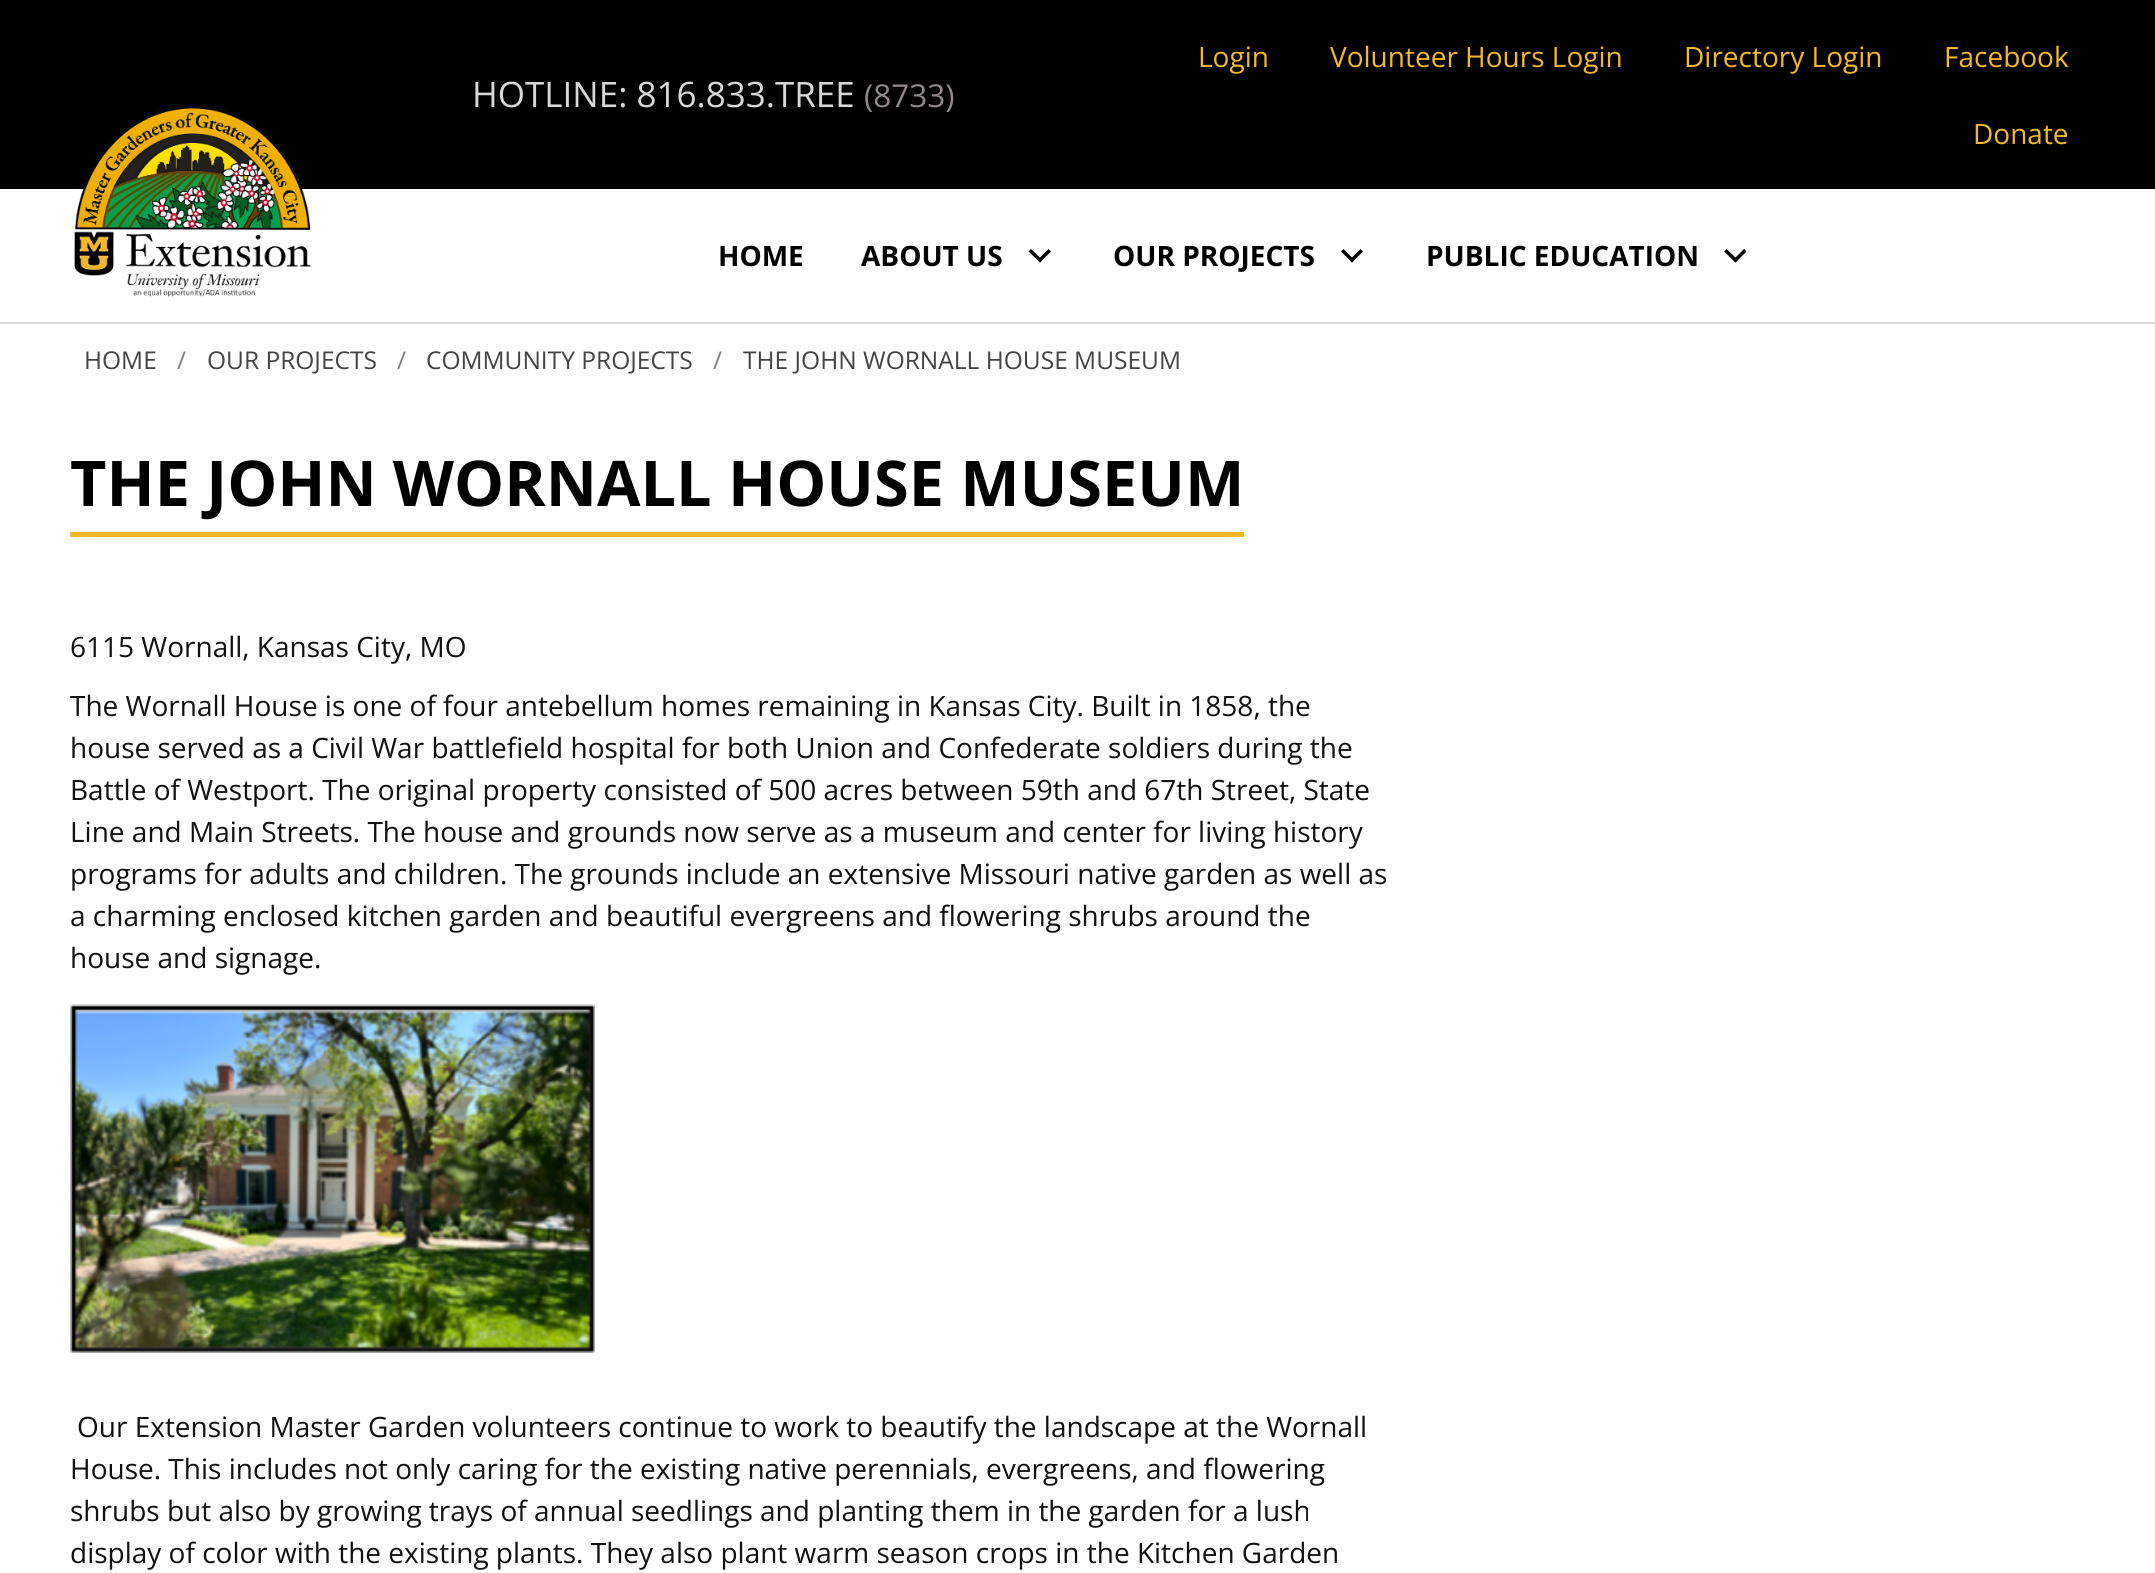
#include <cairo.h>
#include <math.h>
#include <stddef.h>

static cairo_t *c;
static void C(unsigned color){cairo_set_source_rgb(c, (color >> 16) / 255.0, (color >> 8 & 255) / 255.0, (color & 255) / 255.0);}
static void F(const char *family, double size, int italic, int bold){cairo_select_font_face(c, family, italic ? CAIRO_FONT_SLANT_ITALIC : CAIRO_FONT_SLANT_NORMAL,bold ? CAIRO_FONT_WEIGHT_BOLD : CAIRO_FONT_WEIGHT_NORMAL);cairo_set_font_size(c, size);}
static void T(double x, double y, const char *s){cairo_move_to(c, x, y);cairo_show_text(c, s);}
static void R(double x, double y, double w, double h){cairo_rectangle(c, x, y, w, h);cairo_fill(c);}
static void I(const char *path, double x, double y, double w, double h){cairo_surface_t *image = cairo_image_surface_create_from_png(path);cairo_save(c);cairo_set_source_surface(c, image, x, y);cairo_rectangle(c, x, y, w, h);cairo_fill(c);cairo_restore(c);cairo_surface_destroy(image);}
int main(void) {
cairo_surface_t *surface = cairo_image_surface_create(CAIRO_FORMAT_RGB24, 2155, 1573);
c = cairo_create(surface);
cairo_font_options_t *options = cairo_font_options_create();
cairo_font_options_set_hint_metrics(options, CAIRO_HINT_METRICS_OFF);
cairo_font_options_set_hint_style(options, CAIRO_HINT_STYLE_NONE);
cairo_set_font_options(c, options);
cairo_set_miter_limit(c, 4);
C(0x000000);
cairo_paint(c);
F("Open Sans",35,0,0);
C(0xd7d7d7);
T(472,107,"HOTLINE: 816.833.TREE");
F("Open Sans",31.5,0,0);
C(0x8f8884);
T(864,107,"(8733)");
F("Open Sans",28,0,0);
C(0xf1b82d);
T(1198,67,"Login");
T(1330,67,"Volunteer Hours Login");
T(1684,67,"Directory Login");
T(1944,67,"Facebook");
T(1973,144,"Donate");
C(0xffffff);
R(0,189,2155,133);
I("1.png",74,106,237,191);
F("Open Sans",28,0,1);
C(0x000000);
T(718,266,"HOME");
T(861,266,"ABOUT US");
cairo_new_path(c);
cairo_move_to(c,1048.5,249);
cairo_line_to(c,1051,251.5);
cairo_line_to(c,1040,262.5);
cairo_line_to(c,1037.5,260);
cairo_close_path(c);
cairo_fill(c);
cairo_new_path(c);
cairo_move_to(c,1031,249);
cairo_line_to(c,1042.5,260);
cairo_line_to(c,1040,262.5);
cairo_line_to(c,1028.5,251.5);
cairo_close_path(c);
cairo_fill(c);
T(1113,266,"OUR PROJECTS");
cairo_new_path(c);
cairo_move_to(c,1360.5,249);
cairo_line_to(c,1363,251.5);
cairo_line_to(c,1352,262.5);
cairo_line_to(c,1349.5,260);
cairo_close_path(c);
cairo_fill(c);
cairo_new_path(c);
cairo_move_to(c,1343.5,249);
cairo_line_to(c,1354.5,260);
cairo_line_to(c,1352,262.5);
cairo_line_to(c,1341,251.5);
cairo_close_path(c);
cairo_fill(c);
T(1426,266,"PUBLIC EDUCATION");
cairo_new_path(c);
cairo_move_to(c,1744,249);
cairo_line_to(c,1746.5,251.5);
cairo_line_to(c,1735.5,262.5);
cairo_line_to(c,1733,260);
cairo_close_path(c);
cairo_fill(c);
cairo_new_path(c);
cairo_move_to(c,1726.5,249);
cairo_line_to(c,1738,260);
cairo_line_to(c,1735.5,262.5);
cairo_line_to(c,1724,251.5);
cairo_close_path(c);
cairo_fill(c);
C(0xffffff);
R(0,324,2155,1249);
C(0xd7d7d7);
R(0,322,2155,2);
F("Open Sans",24.5,0,0);
C(0x444444);
T(84,369,"HOME");
C(0x7d7d7d);
T(177,369,"/");
C(0x444444);
T(207,369,"OUR PROJECTS");
C(0x7d7d7d);
T(397,369,"/");
C(0x444444);
T(426,369,"COMMUNITY PROJECTS");
C(0x7d7d7d);
T(713,369,"/");
C(0x444444);
T(743,369,"THE JOHN WORNALL HOUSE MUSEUM");
C(0xf1b82d);
R(70,532,1174,5);
F("Open Sans",63,0,1);
C(0x000000);
T(70,506,"THE JOHN WORNALL HOUSE MUSEUM");
F("Open Sans",28,0,0);
C(0x111111);
T(70,657,"6115 Wornall, Kansas City, MO");
T(70,716,"The Wornall House is one of four antebellum homes remaining in Kansas City. Built in 1858, the");
T(70,758,"house served as a Civil War battlefield hospital for both Union and Confederate soldiers during the");
T(70,800,"Battle of Westport. The original property consisted of 500 acres between 59th and 67th Street, State");
T(70,842,"Line and Main Streets. The house and grounds now serve as a museum and center for living history");
T(70,884,"programs for adults and children. The grounds include an extensive Missouri native garden as well as");
T(70,926,"a charming enclosed kitchen garden and beautiful evergreens and flowering shrubs around the");
T(70,968,"house and signage.");
I("2.png",70,1004,525,349);
T(77,1437,"Our Extension Master Garden volunteers continue to work to beautify the landscape at the Wornall");
T(70,1479,"House. This includes not only caring for the existing native perennials, evergreens, and flowering");
T(70,1521,"shrubs but also by growing trays of annual seedlings and planting them in the garden for a lush");
T(70,1563,"display of color with the existing plants. They also plant warm season crops in the Kitchen Garden");
cairo_surface_write_to_png(surface, "o.png");
cairo_font_options_destroy(options);
cairo_destroy(c);
cairo_surface_destroy(surface);
return 0;
}
